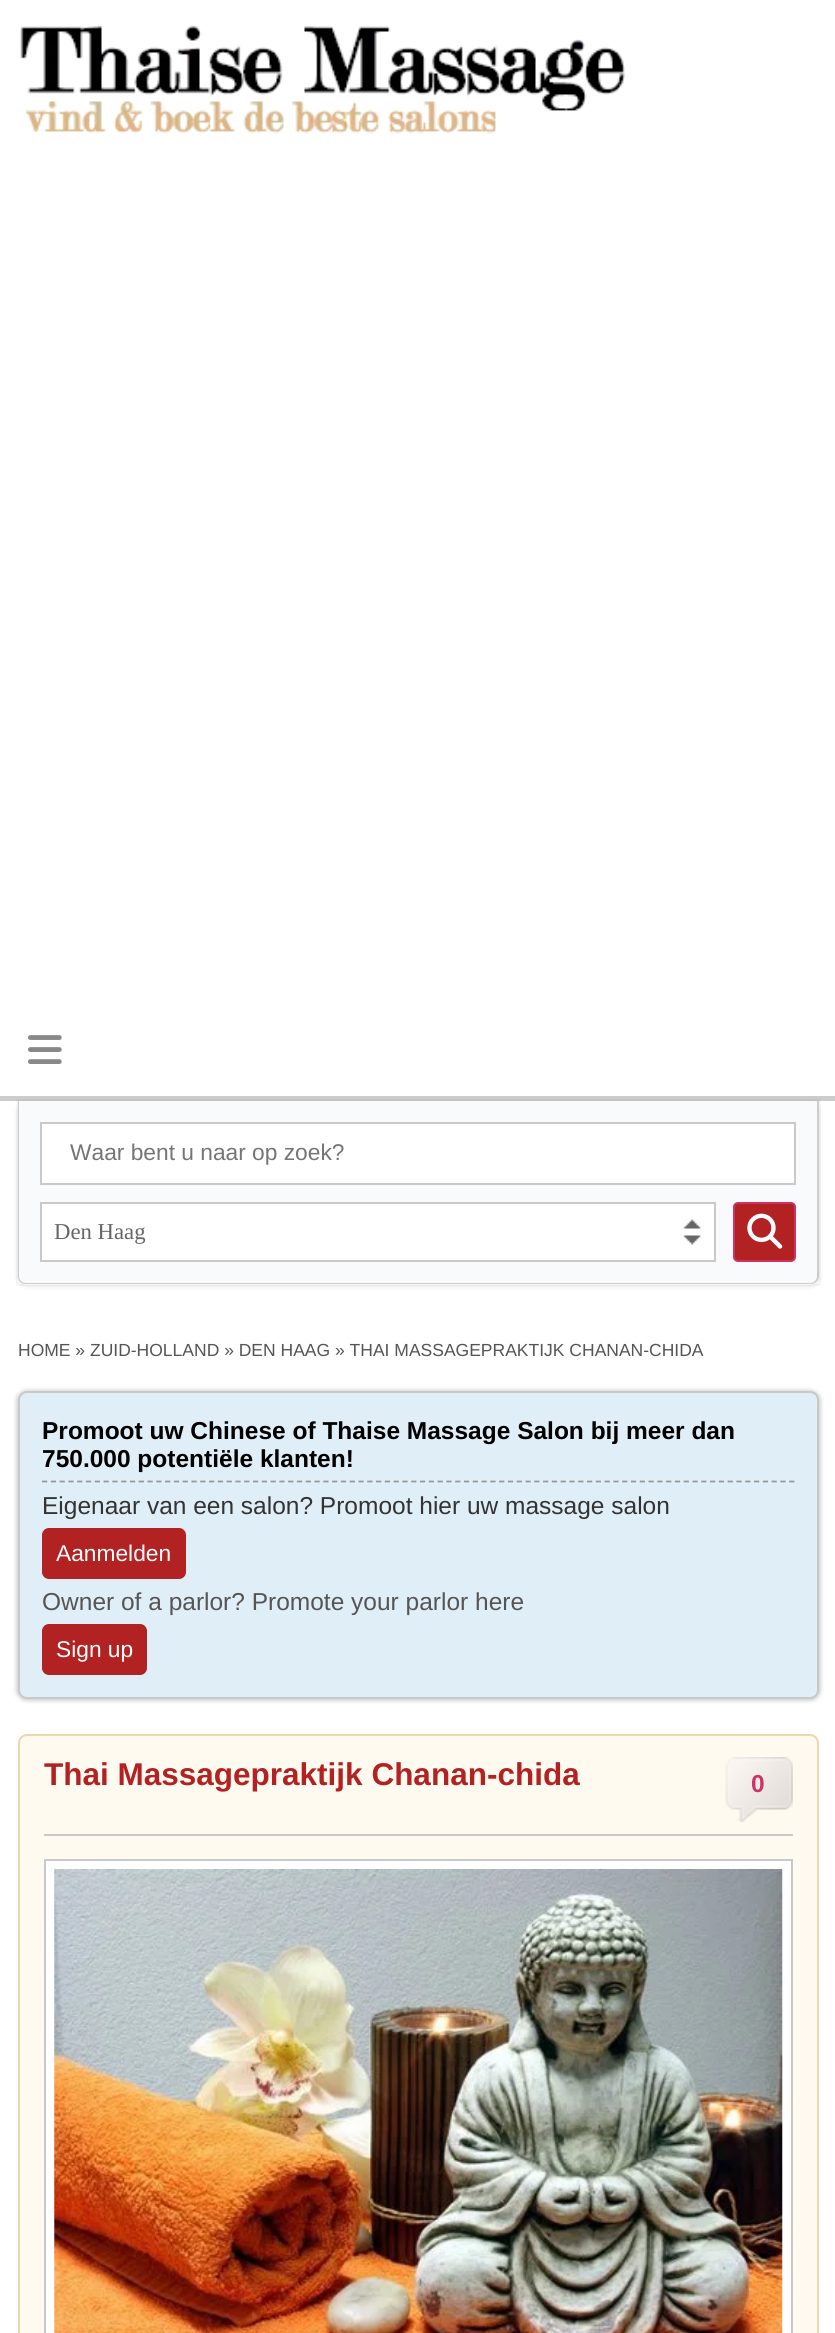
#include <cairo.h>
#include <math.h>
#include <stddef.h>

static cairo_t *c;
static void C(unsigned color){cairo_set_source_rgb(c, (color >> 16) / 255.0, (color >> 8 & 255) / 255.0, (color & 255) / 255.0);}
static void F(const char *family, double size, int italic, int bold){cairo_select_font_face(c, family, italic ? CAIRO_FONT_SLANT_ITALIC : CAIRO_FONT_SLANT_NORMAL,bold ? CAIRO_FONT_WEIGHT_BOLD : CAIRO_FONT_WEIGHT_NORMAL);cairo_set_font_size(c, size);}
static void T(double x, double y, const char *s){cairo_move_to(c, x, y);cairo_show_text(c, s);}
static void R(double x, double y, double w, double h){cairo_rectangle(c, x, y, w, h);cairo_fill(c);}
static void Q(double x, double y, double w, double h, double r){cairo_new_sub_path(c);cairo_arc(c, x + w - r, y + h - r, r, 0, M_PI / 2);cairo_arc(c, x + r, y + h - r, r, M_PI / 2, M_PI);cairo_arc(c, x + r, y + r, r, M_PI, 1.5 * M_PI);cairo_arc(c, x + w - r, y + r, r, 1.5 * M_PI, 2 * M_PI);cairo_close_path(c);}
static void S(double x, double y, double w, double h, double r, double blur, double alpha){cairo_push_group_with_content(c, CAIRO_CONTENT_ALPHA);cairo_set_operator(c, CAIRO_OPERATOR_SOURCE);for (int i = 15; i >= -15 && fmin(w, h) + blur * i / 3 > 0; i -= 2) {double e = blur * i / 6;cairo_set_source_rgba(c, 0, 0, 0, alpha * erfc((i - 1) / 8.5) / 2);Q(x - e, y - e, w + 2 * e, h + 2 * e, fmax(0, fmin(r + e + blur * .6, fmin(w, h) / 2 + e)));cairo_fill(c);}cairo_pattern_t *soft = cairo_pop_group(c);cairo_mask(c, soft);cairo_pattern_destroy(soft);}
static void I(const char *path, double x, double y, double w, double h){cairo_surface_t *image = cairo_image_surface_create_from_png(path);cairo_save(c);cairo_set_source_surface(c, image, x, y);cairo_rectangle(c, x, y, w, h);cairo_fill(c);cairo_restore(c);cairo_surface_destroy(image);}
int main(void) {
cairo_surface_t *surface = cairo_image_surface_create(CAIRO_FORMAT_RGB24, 835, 2333);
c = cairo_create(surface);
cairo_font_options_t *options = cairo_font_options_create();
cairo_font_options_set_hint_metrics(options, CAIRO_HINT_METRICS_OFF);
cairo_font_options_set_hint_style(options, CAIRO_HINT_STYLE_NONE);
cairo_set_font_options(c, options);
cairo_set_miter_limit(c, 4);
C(0xffffff);
cairo_paint(c);
C(0xcccccc);
R(0,1096,835,5);
I("1.png",20,25,606,109);
I("2.png",28,1035,34,29);
C(0x3f3f44);
S(18,1103,801,183,9,2.5,.15);
cairo_rectangle(c,17,1100,803,185);
cairo_set_source_rgba(c,0.247,0.247,0.267,0.05);
cairo_stroke(c);
C(0xf9fafb);
cairo_new_path(c);
cairo_move_to(c,18,1101);
cairo_line_to(c,819,1101);
cairo_line_to(c,819,1276);
cairo_curve_to(c,819,1281,815,1285,810,1285);
cairo_line_to(c,27,1285);
cairo_curve_to(c,22,1285,18,1281,18,1276);
cairo_close_path(c);
cairo_fill(c);
C(0xcccccc);
cairo_set_fill_rule(c,CAIRO_FILL_RULE_EVEN_ODD);
cairo_new_path(c);
cairo_move_to(c,18,1101);
cairo_line_to(c,819,1101);
cairo_line_to(c,819,1276);
cairo_curve_to(c,819,1281,815,1284,810,1284);
cairo_line_to(c,26,1284);
cairo_curve_to(c,21,1284,18,1281,18,1276);
cairo_close_path(c);
cairo_move_to(c,19,1101);
cairo_line_to(c,817,1101);
cairo_line_to(c,817,1276);
cairo_curve_to(c,817,1280,814,1283,810,1283);
cairo_line_to(c,26,1283);
cairo_curve_to(c,22,1283,19,1280,19,1276);
cairo_close_path(c);
cairo_fill(c);
C(0xffffff);
cairo_rectangle(c,41,1123,754,61);
cairo_fill_preserve(c);
C(0xc9c9c9);
cairo_stroke(c);
F("Liberation Sans",22.75,0,0);
C(0x757575);
T(70,1160,"Waar bent u naar op zoek?");
C(0xffffff);
R(42,1204,672,56);
I("3.png",683,1219,18,26);
cairo_rectangle(c,41,1203,674,58);
C(0xc9c9c9);
cairo_stroke(c);
F("Liberation Serif",22.75,0,0);
C(0x666666);
T(54,1239,"Den Haag");
C(0xb22222);
Q(734,1203,61,58,4);
cairo_fill_preserve(c);
C(0xcc3366);
cairo_stroke(c);
I("4.png",747,1213,36,36);
F("Liberation Sans",17.5,0,0);
C(0x555555);
T(18,1356,"HOME » ZUID-HOLLAND » DEN HAAG » THAI MASSAGEPRAKTIJK CHANAN-CHIDA");
C(0x191919);
S(16,1390,805,311,11,2,.2);
C(0xe0eef7);
Q(19,1392,799,306,8);
cairo_fill_preserve(c);
C(0xc9c9c9);
cairo_stroke(c);
cairo_new_path(c);
cairo_move_to(c,42,1481.5);
cairo_line_to(c,794.5,1481.5);
C(0x999999);
cairo_set_line_width(c,1.8);
cairo_set_dash(c,(double[]){5.25,3.54},2,0);
cairo_stroke(c);
F("Liberation Sans",24.5,0,1);
C(0x000000);
T(42,1439,"Promoot uw Chinese of Thaise Massage Salon bij meer dan");
T(42,1467,"750.000 potentiële klanten!");
F("Liberation Sans",24.5,0,0);
C(0x333333);
T(42,1514,"Eigenaar van een salon? Promoot hier uw massage salon");
C(0xb22222);
Q(42,1528,144,51,7);
cairo_fill(c);
F("Liberation Sans",22.75,0,0);
C(0xffffff);
T(56,1561,"Aanmelden");
F("Liberation Sans",24.5,0,0);
C(0x555555);
T(42,1610,"Owner of a parlor? Promote your parlor here");
C(0xb22222);
Q(42,1624,105,51,7);
cairo_fill(c);
F("Liberation Sans",22.75,0,0);
C(0xffffff);
T(56,1657,"Sign up");
C(0xfffaef);
Q(19,1735,799,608,8);
cairo_fill_preserve(c);
C(0xedd7ad);
cairo_set_line_width(c,2);
cairo_set_dash(c,NULL,0,0);
cairo_stroke(c);
C(0xc9c9c9);
R(44,1834,749,2);
F("Liberation Sans",31.5,0,1);
C(0xb22222);
T(44,1785,"Thai Massagepraktijk Chanan-chida");
I("5.png",725,1757,68,66);
F("Liberation Sans",24.5,0,1);
C(0xcc3366);
T(751,1792,"0");
C(0xffffff);
cairo_rectangle(c,45,1860,747,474);
cairo_fill_preserve(c);
C(0xc9c9c9);
cairo_stroke(c);
I("6.png",54,1869,729,464);
cairo_surface_write_to_png(surface, "o.png");
cairo_font_options_destroy(options);
cairo_destroy(c);
cairo_surface_destroy(surface);
return 0;
}
